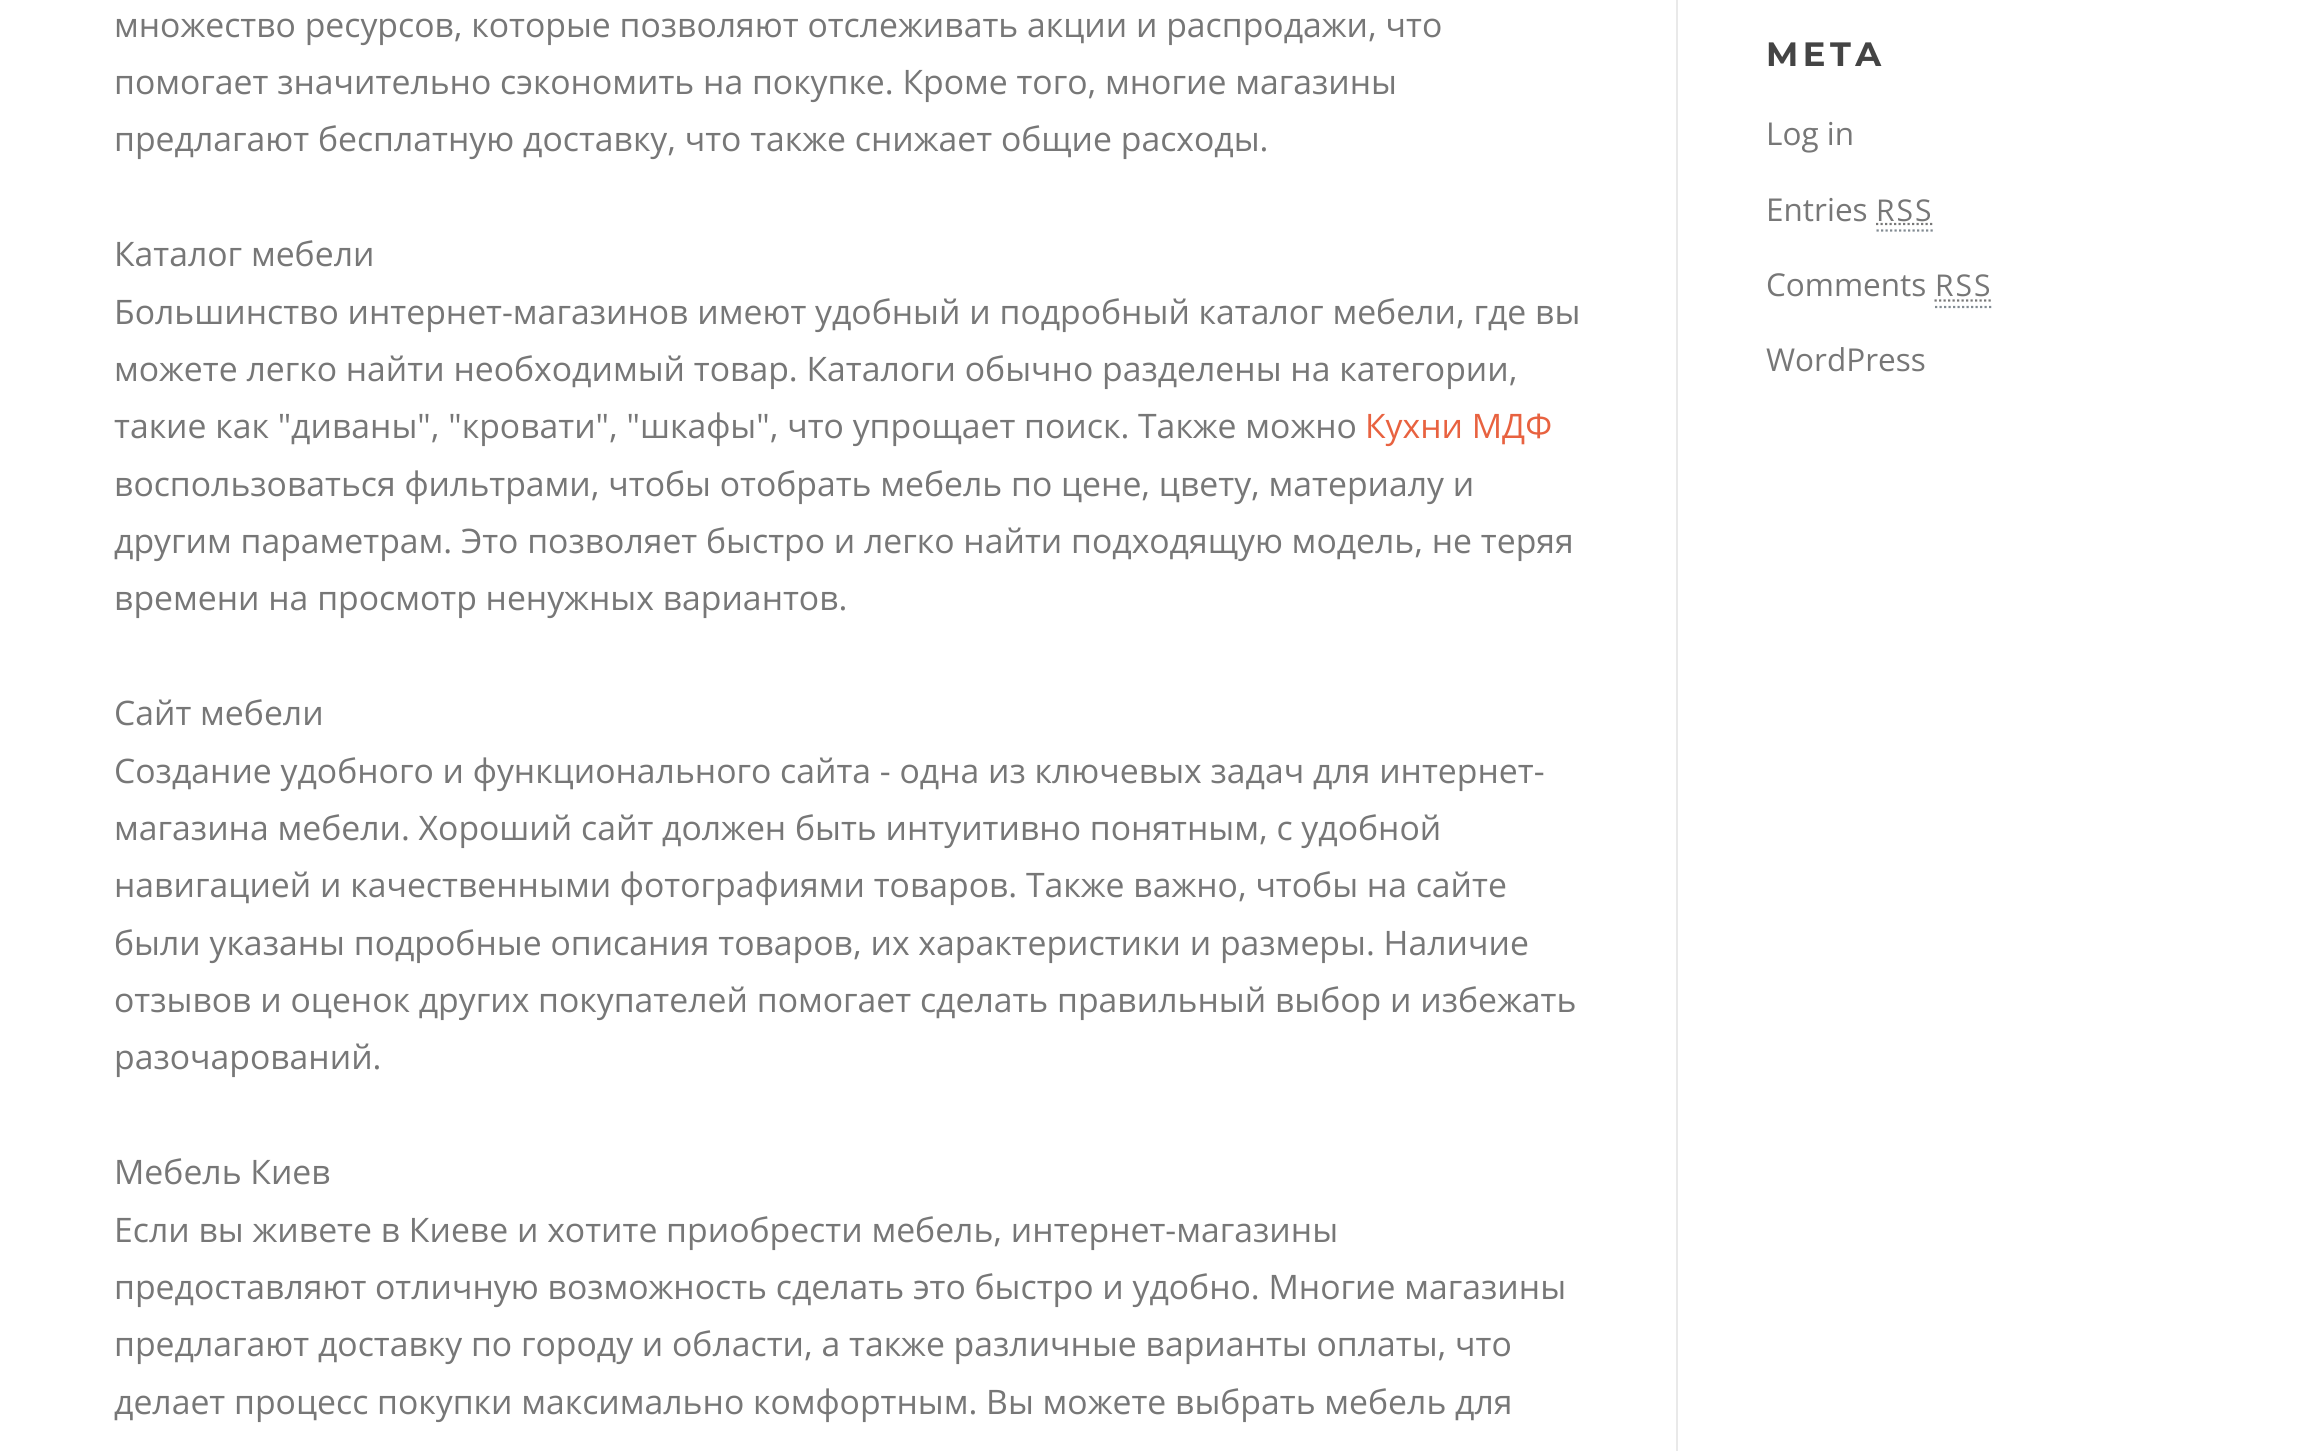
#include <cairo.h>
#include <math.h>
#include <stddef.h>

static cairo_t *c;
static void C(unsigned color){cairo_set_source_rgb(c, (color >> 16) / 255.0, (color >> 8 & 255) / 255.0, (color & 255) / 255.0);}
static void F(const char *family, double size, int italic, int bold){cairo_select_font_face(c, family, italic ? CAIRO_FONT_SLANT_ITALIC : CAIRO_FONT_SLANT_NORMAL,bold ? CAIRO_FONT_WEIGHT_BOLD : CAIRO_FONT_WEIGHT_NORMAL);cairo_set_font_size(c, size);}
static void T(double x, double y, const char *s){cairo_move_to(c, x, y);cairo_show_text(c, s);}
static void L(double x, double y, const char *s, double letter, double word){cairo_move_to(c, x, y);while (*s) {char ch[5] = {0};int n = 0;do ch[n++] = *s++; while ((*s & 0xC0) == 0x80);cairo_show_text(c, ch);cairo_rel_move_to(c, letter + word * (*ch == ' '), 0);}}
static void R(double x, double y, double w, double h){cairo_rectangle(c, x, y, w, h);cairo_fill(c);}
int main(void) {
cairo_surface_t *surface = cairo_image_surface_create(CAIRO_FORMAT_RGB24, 2318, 1451);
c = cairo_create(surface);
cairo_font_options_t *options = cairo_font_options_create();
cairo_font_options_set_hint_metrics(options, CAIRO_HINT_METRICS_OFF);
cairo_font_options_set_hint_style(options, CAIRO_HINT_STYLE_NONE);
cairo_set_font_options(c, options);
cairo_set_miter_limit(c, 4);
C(0xffffff);
cairo_paint(c);
C(0xe9e9e9);
R(1676,0,2,1451);
F("Open Sans",33.75,0,0);
C(0x777777);
T(114,37,"множество ресурсов, которые позволяют отслеживать акции и распродажи, что");
T(114,94,"помогает значительно сэкономить на покупке. Кроме того, многие магазины");
T(114,151,"предлагают бесплатную доставку, что также снижает общие расходы.");
T(114,266,"Каталог мебели");
T(114,324,"Большинство интернет-магазинов имеют удобный и подробный каталог мебели, где вы");
T(114,381,"можете легко найти необходимый товар. Каталоги обычно разделены на категории,");
T(114,438,"такие как \"диваны\", \"кровати\", \"шкафы\", что упрощает поиск. Также можно");
C(0xe86240);
T(1365,438,"Кухни МДФ");
C(0x777777);
T(114,496,"воспользоваться фильтрами, чтобы отобрать мебель по цене, цвету, материалу и");
T(114,553,"другим параметрам. Это позволяет быстро и легко найти подходящую модель, не теряя");
T(114,610,"времени на просмотр ненужных вариантов.");
T(114,725,"Сайт мебели");
T(114,783,"Создание удобного и функционального сайта - одна из ключевых задач для интернет-");
T(114,840,"магазина мебели. Хороший сайт должен быть интуитивно понятным, с удобной");
T(114,897,"навигацией и качественными фотографиями товаров. Также важно, чтобы на сайте");
T(114,955,"были указаны подробные описания товаров, их характеристики и размеры. Наличие");
T(114,1012,"отзывов и оценок других покупателей помогает сделать правильный выбор и избежать");
T(114,1069,"разочарований.");
T(114,1184,"Мебель Киев");
T(114,1242,"Если вы живете в Киеве и хотите приобрести мебель, интернет-магазины");
T(114,1299,"предоставляют отличную возможность сделать это быстро и удобно. Многие магазины");
T(114,1356,"предлагают доставку по городу и области, а также различные варианты оплаты, что");
T(114,1414,"делает процесс покупки максимально комфортным. Вы можете выбрать мебель для");
F("Montserrat",33.75,0,1);
C(0x444444);
L(1766,66,"META",4.5,0);
F("Open Sans",31.5,0,0);
C(0x777777);
T(1766,145,"Log in");
T(1766,221,"Entries");
F("Open Sans",30,0,0);
L(1876,221,"RSS",2,0);
cairo_new_path(c);
cairo_move_to(c,1876.5,230.5);
cairo_line_to(c,1933,230.5);
C(0x818a91);
cairo_set_line_width(c,2.2);
cairo_set_dash(c,(double[]){2.25,2.25},2,0);
cairo_stroke(c);
cairo_new_path(c);
cairo_move_to(c,1876,224);
cairo_line_to(c,1934,224);
C(0x777777);
cairo_stroke(c);
F("Open Sans",31.5,0,0);
T(1766,296,"Comments");
F("Open Sans",30,0,0);
L(1935,296,"RSS",2,0);
cairo_new_path(c);
cairo_move_to(c,1935,307);
cairo_line_to(c,1993.5,307);
C(0x818a91);
cairo_stroke(c);
cairo_new_path(c);
cairo_move_to(c,1934.5,300.5);
cairo_line_to(c,1992.5,300.5);
C(0x777777);
cairo_stroke(c);
F("Open Sans",31.5,0,0);
T(1766,371,"WordPress");
cairo_surface_write_to_png(surface, "o.png");
cairo_font_options_destroy(options);
cairo_destroy(c);
cairo_surface_destroy(surface);
return 0;
}
